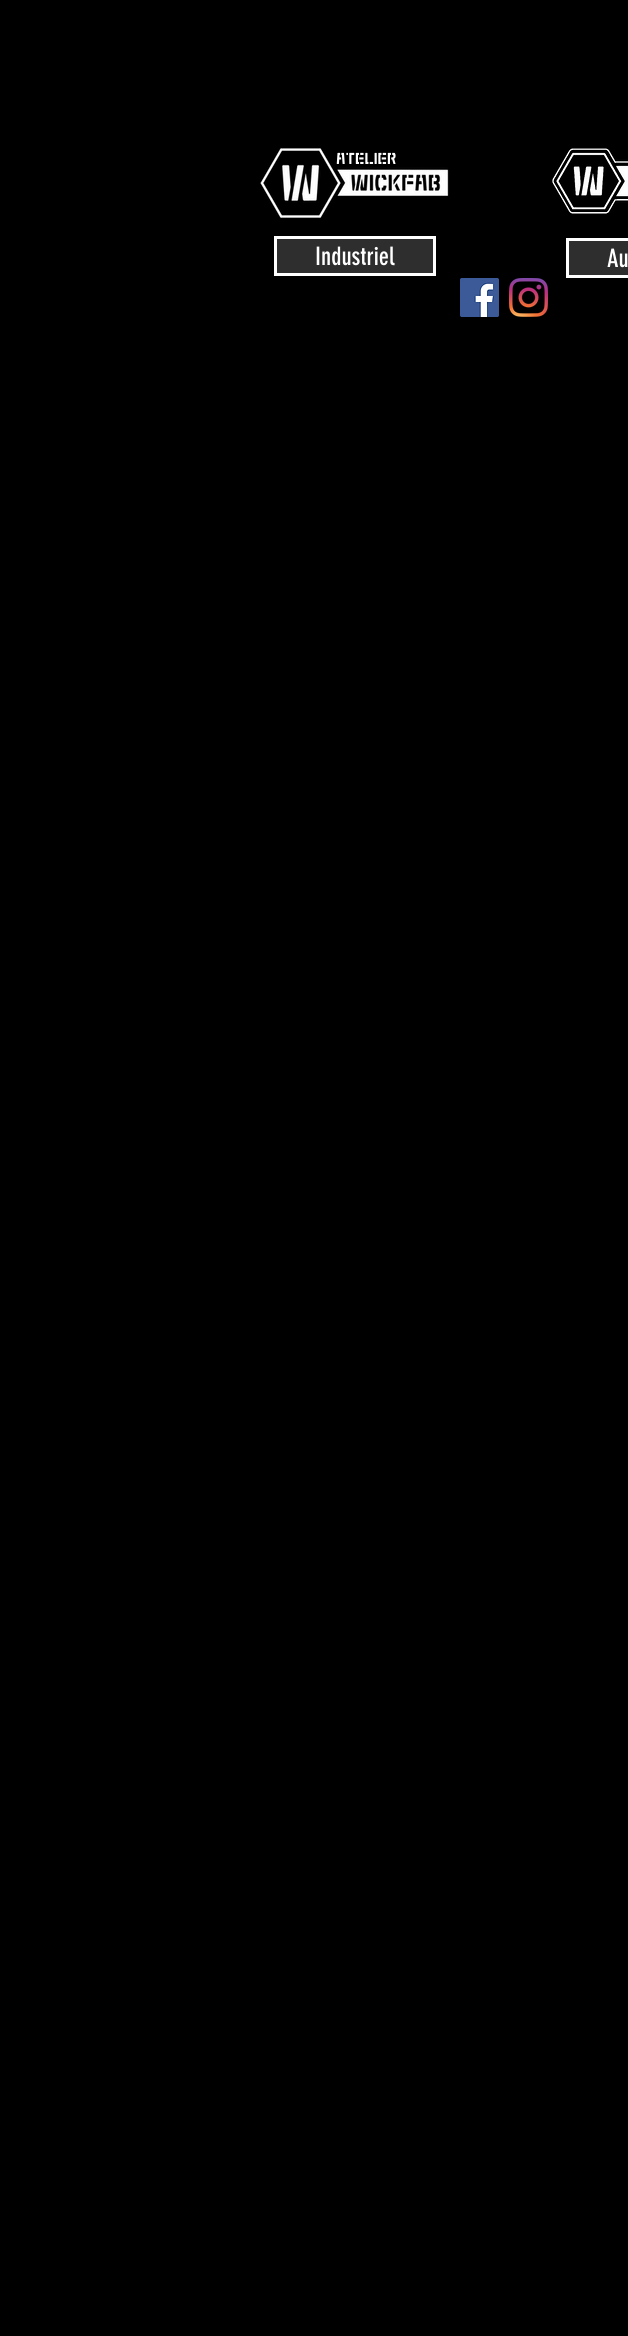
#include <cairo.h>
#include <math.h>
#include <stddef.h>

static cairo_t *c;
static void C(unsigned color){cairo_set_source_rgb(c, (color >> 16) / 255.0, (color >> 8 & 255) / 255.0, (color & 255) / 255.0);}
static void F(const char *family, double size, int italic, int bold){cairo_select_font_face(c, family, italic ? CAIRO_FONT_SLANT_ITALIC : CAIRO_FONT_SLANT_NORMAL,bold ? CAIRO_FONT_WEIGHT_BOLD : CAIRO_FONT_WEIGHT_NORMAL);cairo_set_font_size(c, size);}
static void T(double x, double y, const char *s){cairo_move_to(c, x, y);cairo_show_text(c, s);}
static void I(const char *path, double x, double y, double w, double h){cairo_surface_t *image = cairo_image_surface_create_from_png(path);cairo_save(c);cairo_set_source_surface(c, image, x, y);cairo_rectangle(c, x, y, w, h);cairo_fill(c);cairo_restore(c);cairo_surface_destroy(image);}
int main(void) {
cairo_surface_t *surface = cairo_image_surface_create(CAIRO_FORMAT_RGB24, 628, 2336);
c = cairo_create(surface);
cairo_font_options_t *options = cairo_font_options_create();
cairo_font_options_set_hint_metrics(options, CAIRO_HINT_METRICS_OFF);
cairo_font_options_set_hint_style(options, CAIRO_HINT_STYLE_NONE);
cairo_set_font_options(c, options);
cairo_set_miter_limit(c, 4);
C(0x000000);
cairo_paint(c);
I("1.png",260,148,189,70);
I("2.png",552,148,76,66);
F("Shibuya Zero",14,0,0);
C(0xffffff);
T(336,164,"atelier");
C(0x2f2e2e);
cairo_rectangle(c,275.5,237.5,159,37);
cairo_fill_preserve(c);
C(0xffffff);
cairo_set_line_width(c,3);
cairo_stroke(c);
F("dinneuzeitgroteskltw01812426",25,0,0);
T(315,265,"Industriel");
C(0x2f2e2e);
cairo_rectangle(c,567.5,239.5,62,37);
cairo_fill_preserve(c);
C(0xffffff);
cairo_stroke(c);
T(607,267,"Au");
I("3.png",460,278,39,39);
I("4.png",509,278,39,39);
cairo_surface_write_to_png(surface, "o.png");
cairo_font_options_destroy(options);
cairo_destroy(c);
cairo_surface_destroy(surface);
return 0;
}
